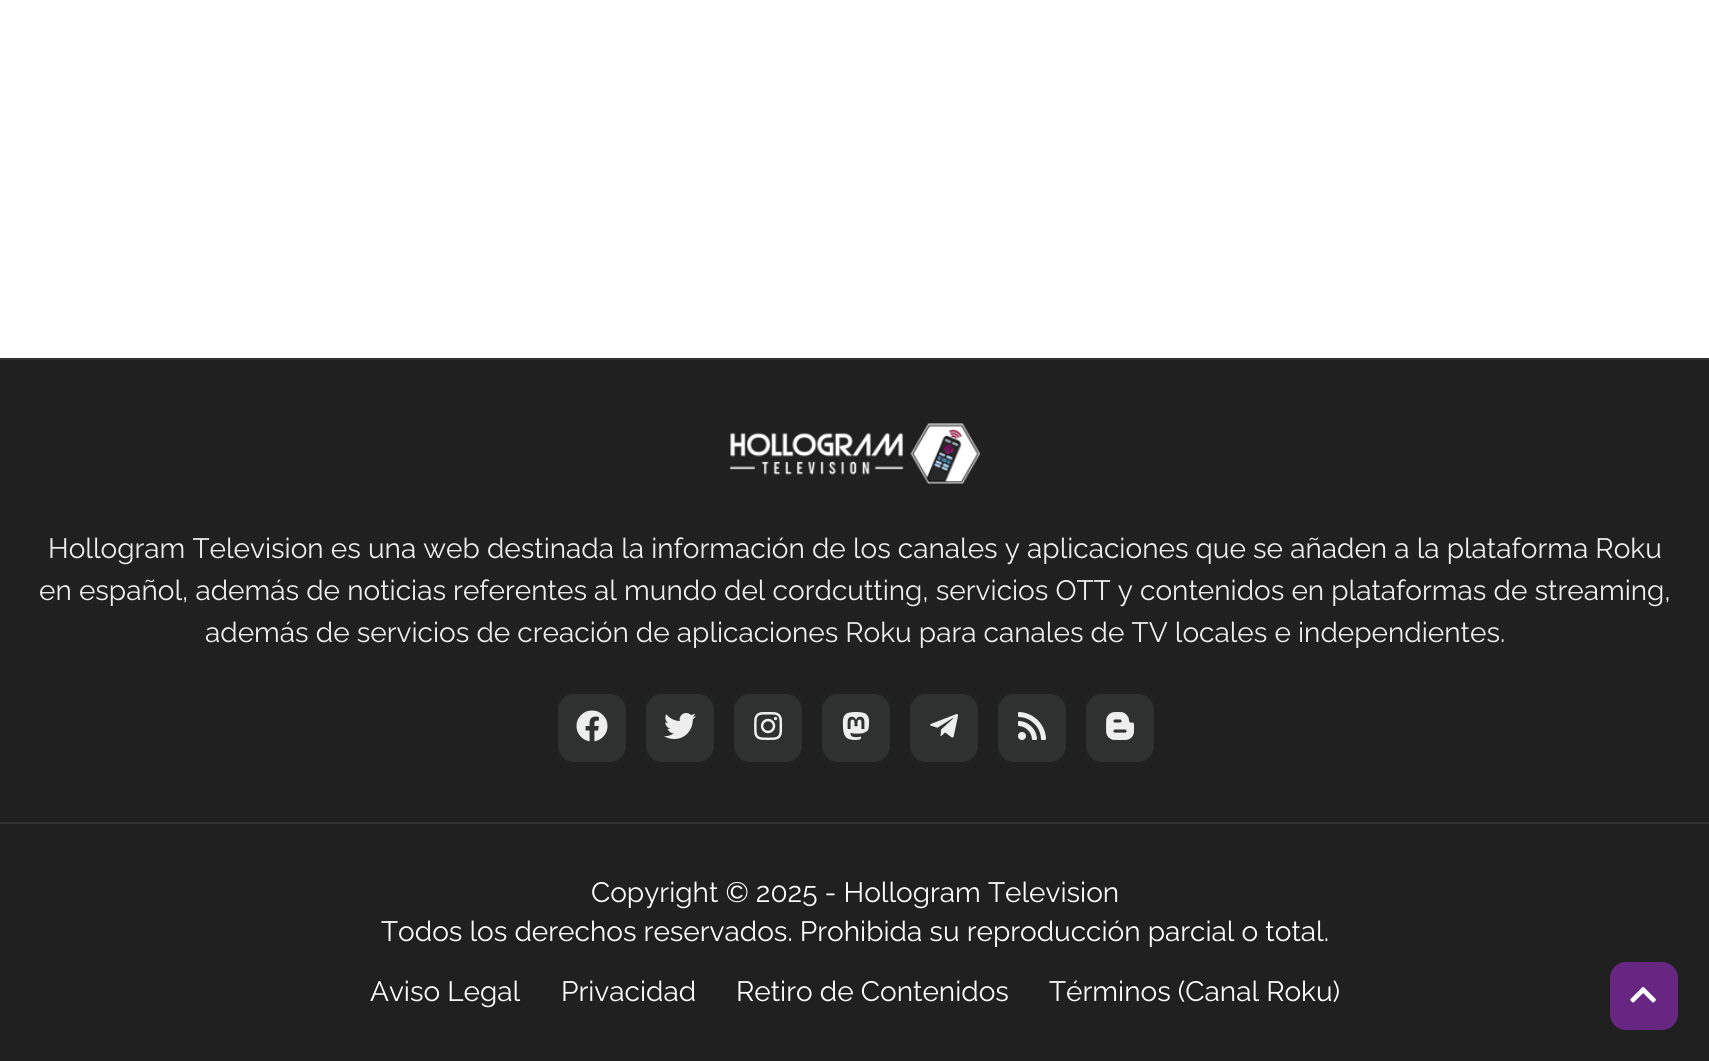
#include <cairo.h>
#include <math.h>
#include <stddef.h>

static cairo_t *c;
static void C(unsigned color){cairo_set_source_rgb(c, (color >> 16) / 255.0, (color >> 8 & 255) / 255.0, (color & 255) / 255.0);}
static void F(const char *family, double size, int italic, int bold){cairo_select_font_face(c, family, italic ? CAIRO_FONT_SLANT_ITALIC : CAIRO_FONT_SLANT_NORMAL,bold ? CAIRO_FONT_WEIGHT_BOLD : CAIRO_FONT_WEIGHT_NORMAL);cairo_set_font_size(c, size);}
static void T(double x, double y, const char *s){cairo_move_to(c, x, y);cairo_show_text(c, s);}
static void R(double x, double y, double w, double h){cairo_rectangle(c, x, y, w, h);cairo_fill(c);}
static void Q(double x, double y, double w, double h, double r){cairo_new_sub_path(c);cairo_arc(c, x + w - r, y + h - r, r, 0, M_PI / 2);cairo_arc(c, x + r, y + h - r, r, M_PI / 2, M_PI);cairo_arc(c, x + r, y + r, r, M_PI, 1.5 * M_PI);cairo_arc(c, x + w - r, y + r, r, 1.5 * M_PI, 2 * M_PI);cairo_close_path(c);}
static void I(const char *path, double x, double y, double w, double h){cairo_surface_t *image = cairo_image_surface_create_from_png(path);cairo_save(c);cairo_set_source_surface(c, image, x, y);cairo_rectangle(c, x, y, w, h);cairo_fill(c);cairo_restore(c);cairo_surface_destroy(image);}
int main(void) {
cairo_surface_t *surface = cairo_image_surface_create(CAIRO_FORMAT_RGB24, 1709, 1061);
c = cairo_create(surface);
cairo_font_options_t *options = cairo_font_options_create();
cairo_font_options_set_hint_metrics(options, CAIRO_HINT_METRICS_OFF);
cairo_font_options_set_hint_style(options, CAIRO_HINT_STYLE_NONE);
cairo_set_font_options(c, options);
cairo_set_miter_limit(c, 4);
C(0xffffff);
cairo_paint(c);
C(0x202020);
R(0,360,1709,701);
C(0x323232);
R(0,358,1709,2);
I("1.png",730,423,250,61);
F("Raleway",28,0,0);
C(0xeeeeee);
T(48,558,"Hollogram Television es una web destinada la información de los canales y aplicaciones que se añaden a la plataforma Roku");
T(39,600,"en español, además de noticias referentes al mundo del cordcutting, servicios OTT y contenidos en plataformas de streaming,");
T(205,642,"además de servicios de creación de aplicaciones Roku para canales de TV locales e independientes.");
C(0x2f3131);
Q(558,694,68,68,16);
cairo_fill(c);
I("2.png",576,710,32,32);
Q(646,694,68,68,16);
cairo_fill(c);
I("3.png",664,713,32,26);
Q(734,694,68,68,16);
cairo_fill(c);
I("4.png",754,712,29,28);
Q(822,694,68,68,16);
cairo_fill(c);
I("5.png",842,712,28,28);
Q(910,694,68,68,16);
cairo_fill(c);
I("6.png",930,714,29,24);
Q(998,694,68,68,16);
cairo_fill(c);
I("7.png",1018,712,28,28);
Q(1086,694,68,68,16);
cairo_fill(c);
I("8.png",1106,712,29,28);
C(0x323232);
R(0,822,1709,2);
C(0xffffff);
T(591,902,"Copyright © 2025 - Hollogram Television");
T(381,941,"Todos los derechos reservados. Prohibida su reproducción parcial o total.");
T(370,1001,"Aviso Legal");
T(561,1001,"Privacidad");
T(736,1001,"Retiro de Contenidos");
T(1049,1001,"Términos (Canal Roku)");
C(0x662682);
Q(1610,962,68,68,16);
cairo_fill(c);
I("9.png",1630,987,26,16);
cairo_surface_write_to_png(surface, "o.png");
cairo_font_options_destroy(options);
cairo_destroy(c);
cairo_surface_destroy(surface);
return 0;
}
